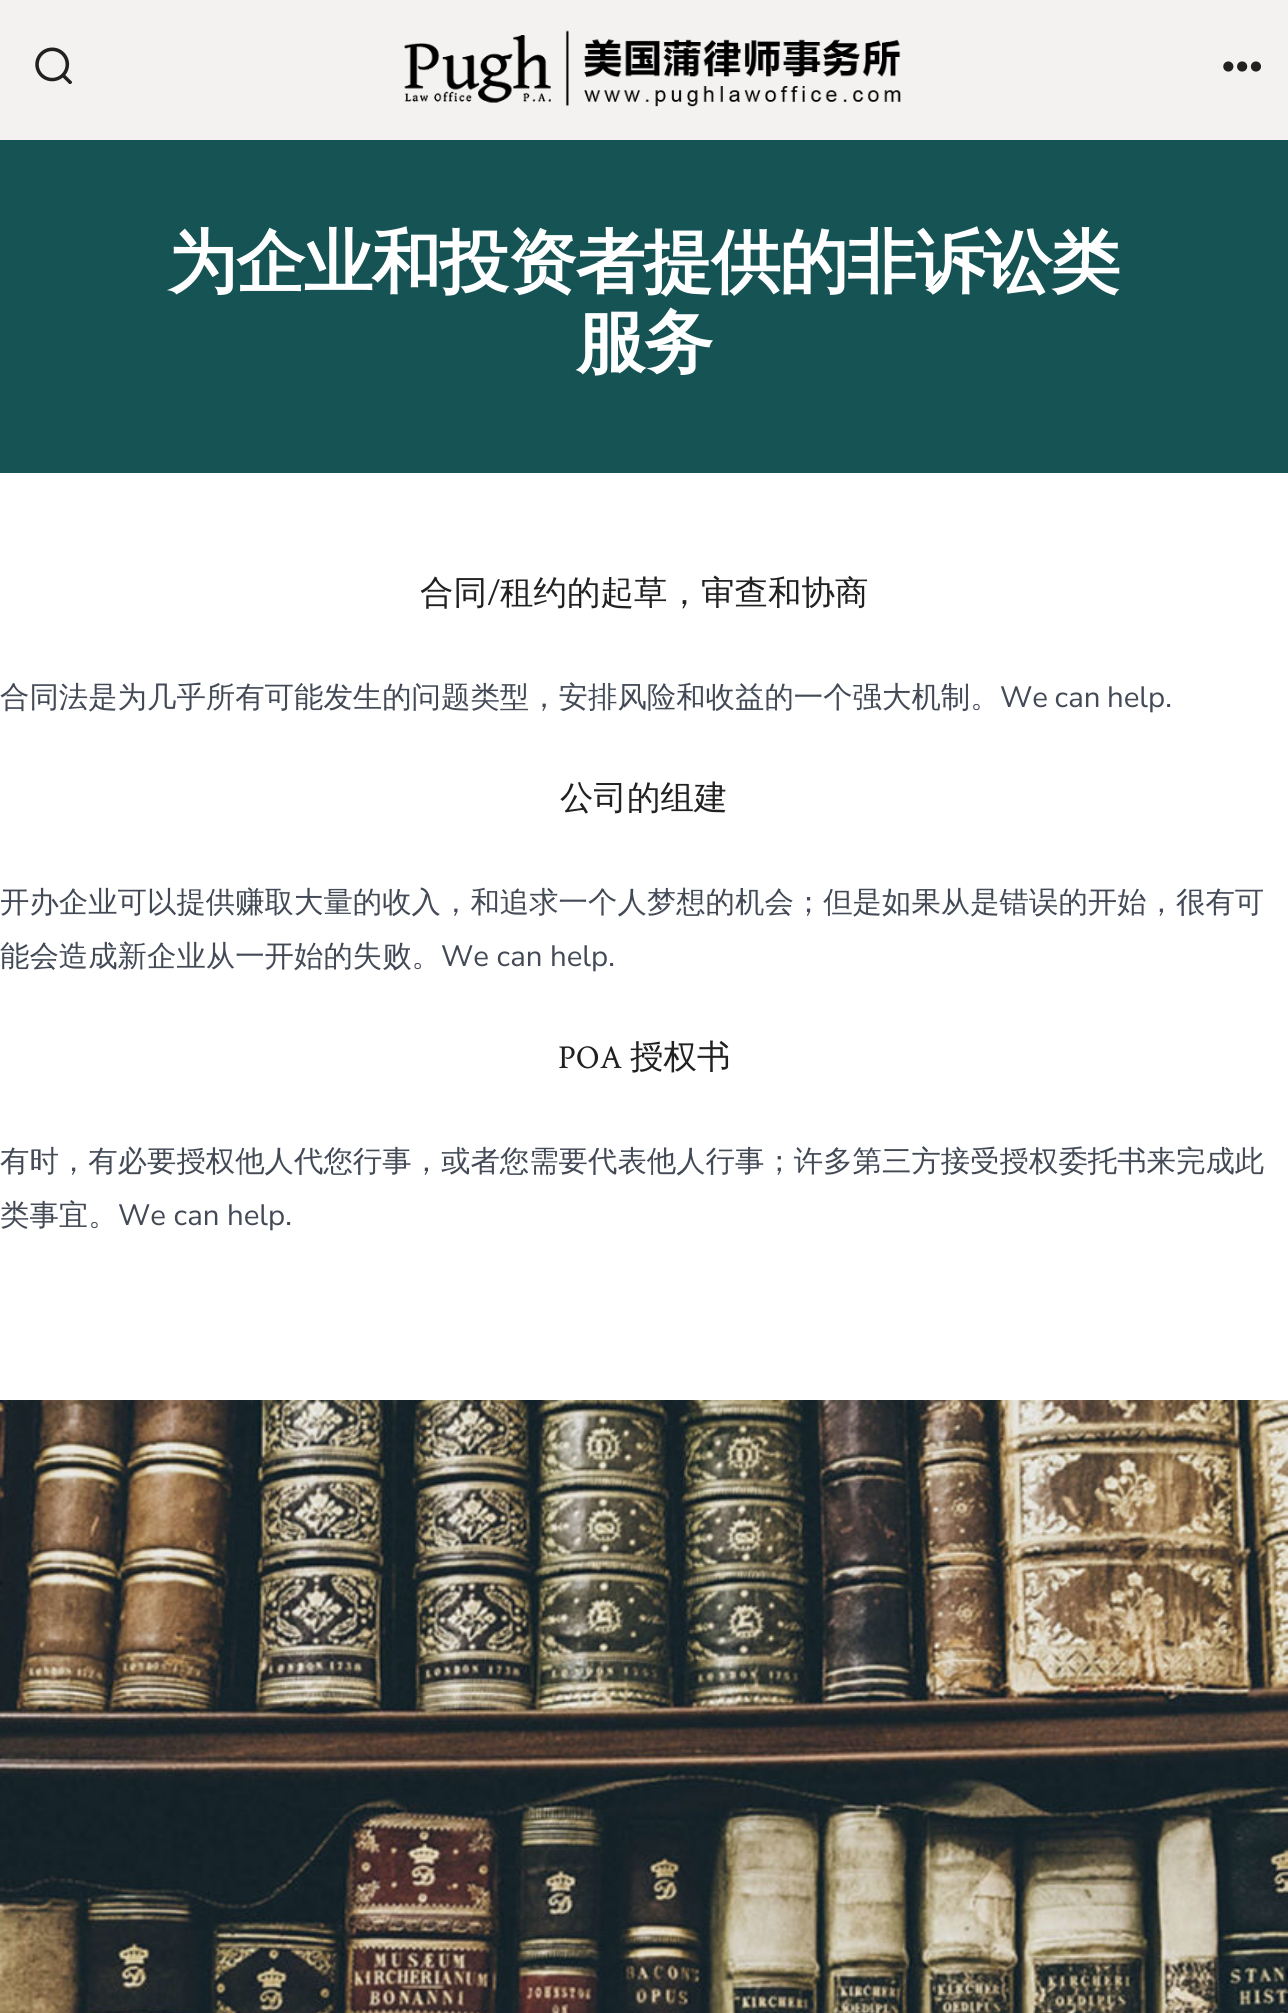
#include <cairo.h>
#include <math.h>
#include <stddef.h>

static cairo_t *c;
static void C(unsigned color){cairo_set_source_rgb(c, (color >> 16) / 255.0, (color >> 8 & 255) / 255.0, (color & 255) / 255.0);}
static void F(const char *family, double size, int italic, int bold){cairo_select_font_face(c, family, italic ? CAIRO_FONT_SLANT_ITALIC : CAIRO_FONT_SLANT_NORMAL,bold ? CAIRO_FONT_WEIGHT_BOLD : CAIRO_FONT_WEIGHT_NORMAL);cairo_set_font_size(c, size);}
static void T(double x, double y, const char *s){cairo_move_to(c, x, y);cairo_show_text(c, s);}
static void L(double x, double y, const char *s, double letter, double word){cairo_move_to(c, x, y);while (*s) {char ch[5] = {0};int n = 0;do ch[n++] = *s++; while ((*s & 0xC0) == 0x80);cairo_show_text(c, ch);cairo_rel_move_to(c, letter + word * (*ch == ' '), 0);}}
static void R(double x, double y, double w, double h){cairo_rectangle(c, x, y, w, h);cairo_fill(c);}
static void I(const char *path, double x, double y, double w, double h){cairo_surface_t *image = cairo_image_surface_create_from_png(path);cairo_save(c);cairo_set_source_surface(c, image, x, y);cairo_rectangle(c, x, y, w, h);cairo_fill(c);cairo_restore(c);cairo_surface_destroy(image);}
int main(void) {
cairo_surface_t *surface = cairo_image_surface_create(CAIRO_FORMAT_RGB24, 1288, 2013);
c = cairo_create(surface);
cairo_font_options_t *options = cairo_font_options_create();
cairo_font_options_set_hint_metrics(options, CAIRO_HINT_METRICS_OFF);
cairo_font_options_set_hint_style(options, CAIRO_HINT_STYLE_NONE);
cairo_set_font_options(c, options);
cairo_set_miter_limit(c, 4);
C(0xffffff);
cairo_paint(c);
C(0xf4f2f1);
R(0,0,1288,140);
I("1.png",35,47,37,37);
I("2.png",404,30,497,77);
I("3.png",1223,61,38,11);
C(0x165355);
R(0,140,1288,333);
F("WenQuanYi Zen Hei",69.3,0,1);
C(0xffffff);
L(168,286,"为企业和投资者提供的非诉讼类",-1.4,0);
L(576,366,"服务",-1.4,0);
F("WenQuanYi Zen Hei Medium",33.5,0,0);
C(0x212121);
T(420,604,"合同");
F("Crimson Text",33.5,0,0);
T(487,604,"/");
F("WenQuanYi Zen Hei Medium",33.5,0,0);
T(500,604,"租约的起草，审查和协商");
F("WenQuanYi Zen Hei Medium",29.4,0,0);
C(0x434a56);
T(0,707,"合同法是为几乎所有可能发生的问题类型，安排风险和收益的一个强大机制。");
F("Nunito Sans",29.4,0,0);
L(1000,707,"We can help.",0,-1);
F("WenQuanYi Zen Hei Medium",33.5,0,0);
C(0x212121);
T(560,809,"公司的组建");
F("WenQuanYi Zen Hei Medium",29.4,0,0);
C(0x434a56);
T(0,912,"开办企业可以提供赚取大量的收入，和追求一个人梦想的机会；但是如果从是错误的开始，很有可");
T(0,966,"能会造成新企业从一开始的失败。");
F("Nunito Sans",29.4,0,0);
T(441,966,"We can help.");
F("Crimson Text",33.5,0,0);
C(0x212121);
T(558,1068,"POA");
F("WenQuanYi Zen Hei Medium",33.5,0,0);
T(630,1068,"授权书");
F("WenQuanYi Zen Hei Medium",29.4,0,0);
C(0x434a56);
T(0,1171,"有时，有必要授权他人代您行事，或者您需要代表他人行事；许多第三方接受授权委托书来完成此");
T(0,1225,"类事宜。");
F("Nunito Sans",29.4,0,0);
T(118,1225,"We can help.");
I("4.png",0,1400,1288,613);
cairo_surface_write_to_png(surface, "o.png");
cairo_font_options_destroy(options);
cairo_destroy(c);
cairo_surface_destroy(surface);
return 0;
}
